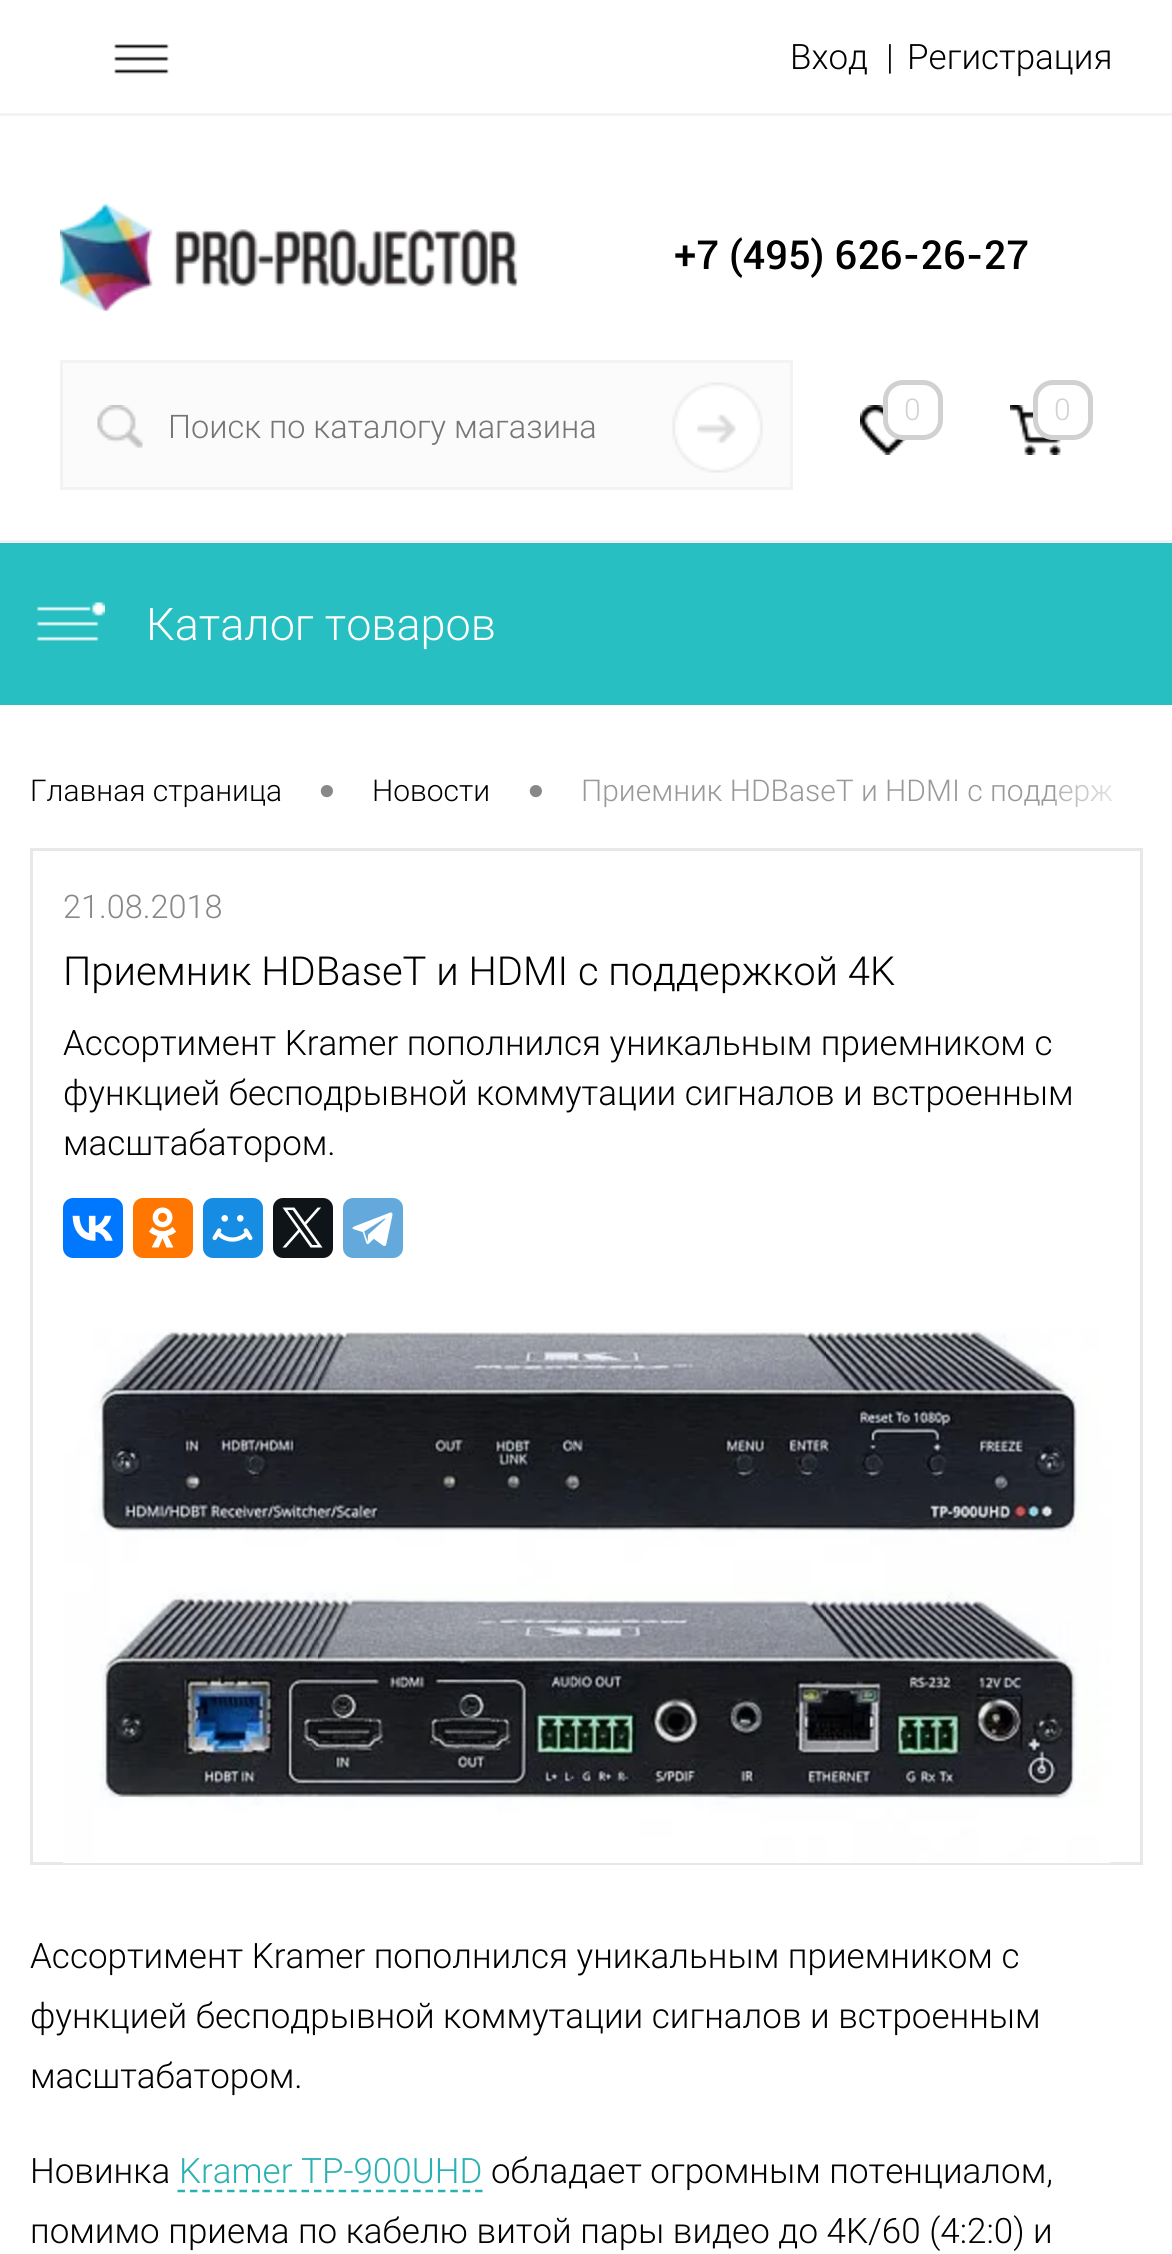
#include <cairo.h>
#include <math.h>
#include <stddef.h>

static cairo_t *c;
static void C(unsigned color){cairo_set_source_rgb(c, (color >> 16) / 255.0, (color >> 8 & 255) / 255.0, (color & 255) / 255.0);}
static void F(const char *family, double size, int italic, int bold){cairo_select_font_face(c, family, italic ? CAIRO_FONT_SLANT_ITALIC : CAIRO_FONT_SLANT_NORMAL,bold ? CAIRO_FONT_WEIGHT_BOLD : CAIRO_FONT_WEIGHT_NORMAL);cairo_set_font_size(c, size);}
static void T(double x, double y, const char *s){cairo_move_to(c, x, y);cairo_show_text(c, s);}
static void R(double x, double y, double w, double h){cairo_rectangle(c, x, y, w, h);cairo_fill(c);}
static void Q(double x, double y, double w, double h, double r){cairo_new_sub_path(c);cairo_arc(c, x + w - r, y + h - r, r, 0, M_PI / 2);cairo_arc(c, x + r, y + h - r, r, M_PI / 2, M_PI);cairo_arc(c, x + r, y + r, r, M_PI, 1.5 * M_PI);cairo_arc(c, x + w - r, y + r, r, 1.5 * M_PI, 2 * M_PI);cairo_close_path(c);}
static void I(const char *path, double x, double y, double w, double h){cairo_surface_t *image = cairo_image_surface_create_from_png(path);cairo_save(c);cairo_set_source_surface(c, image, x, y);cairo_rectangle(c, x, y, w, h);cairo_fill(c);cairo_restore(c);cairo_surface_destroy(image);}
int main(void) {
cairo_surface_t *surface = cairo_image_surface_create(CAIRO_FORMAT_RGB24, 1172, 2254);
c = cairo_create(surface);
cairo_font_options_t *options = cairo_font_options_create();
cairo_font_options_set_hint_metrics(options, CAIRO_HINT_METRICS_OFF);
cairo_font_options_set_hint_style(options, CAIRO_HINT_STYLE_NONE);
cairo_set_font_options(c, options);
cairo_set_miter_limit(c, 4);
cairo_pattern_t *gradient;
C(0xffffff);
cairo_paint(c);
I("1.png",114,44,55,30);
F("Roboto Light",35,0,0);
C(0x000000);
T(790,69,"Вход");
T(886,69,"|");
T(907,69,"Регистрация");
C(0xf3f3f3);
R(0,113,1172,3);
R(0,540,1172,3);
I("2.png",60,204,458,108);
F("Roboto Medium",40,0,0);
C(0x000000);
T(674,269,"+7 (495) 626-26-27");
I("3.png",860,405,46,50);
C(0xffffff);
Q(885.5,382.5,55,55,17.5);
cairo_fill_preserve(c);
C(0xd1d1d1);
cairo_set_line_width(c,5);
cairo_stroke(c);
F("Roboto Light",30,0,0);
T(904,420,"0");
I("4.png",1010,405,51,50);
C(0xffffff);
Q(1035.5,382.5,55,55,17.5);
cairo_fill_preserve(c);
C(0xd1d1d1);
cairo_stroke(c);
T(1054,420,"0");
C(0xfbfbfb);
cairo_rectangle(c,61.5,361.5,730,127);
cairo_fill_preserve(c);
C(0xf3f3f3);
cairo_set_line_width(c,3);
cairo_stroke(c);
I("5.png",97,405,46,43);
F("Roboto Light",32.5,0,0);
C(0x757575);
T(168,438,"Поиск по каталогу магазина");
I("6.png",672,382,91,91);
C(0x27bfc1);
R(0,543,1172,162);
I("7.png",36,602,69,39);
F("Roboto Light",45,0,0);
C(0xffffff);
T(146,640,"Каталог товаров");
F("Roboto Light",30,0,0);
C(0x000000);
T(30,801,"Главная страница");
F("Liberation Sans",45,0,0);
C(0x888888);
T(319,806,"•");
F("Roboto Light",30,0,0);
C(0x000000);
T(372,801,"Новости");
F("Liberation Sans",45,0,0);
C(0x888888);
T(528,806,"•");
F("Roboto Light",30,0,0);
C(0x999999);
T(581,801,"Приемник HDBaseT и HDMI с поддерж");
gradient = cairo_pattern_create_linear(1055,791,1143,791);
cairo_pattern_add_color_stop_rgba(gradient,0,1,1,1,.2);
cairo_pattern_add_color_stop_rgba(gradient,1,1,1,1,1);
cairo_set_source(c,gradient);
cairo_pattern_destroy(gradient);
R(1055,784,58,24);
cairo_rectangle(c,31.5,849.5,1110,1014);
C(0xe7e8ea);
cairo_stroke(c);
F("Roboto Light",32.5,0,0);
C(0x888888);
T(63,918,"21.08.2018");
F("Roboto Light",40,0,0);
C(0x000000);
T(63,985,"Приемник HDBaseT и HDMI с поддержкой 4K");
F("Roboto Light",35,0,0);
T(63,1055,"Ассортимент Kramer пополнился уникальным приемником с");
T(63,1105,"функцией бесподрывной коммутации сигналов и встроенным");
T(63,1155,"масштабатором.");
C(0x0077ff);
Q(63,1198,60,60,10);
cairo_fill(c);
I("8.png",72,1215,41,26);
C(0xff7700);
Q(133,1198,60,60,10);
cairo_fill(c);
I("9.png",149,1207,27,41);
C(0x168de2);
Q(203,1198,60,60,10);
cairo_fill(c);
I("10.png",212,1215,41,27);
C(0x0f1419);
Q(273,1198,60,60,10);
cairo_fill(c);
I("11.png",282,1207,41,41);
C(0x64a9dc);
Q(343,1198,60,60,10);
cairo_fill(c);
I("12.png",352,1212,41,34);
I("13.png",63,1329,1048,534);
C(0x000000);
T(30,1968,"Ассортимент Kramer пополнился уникальным приемником с");
T(30,2028,"функцией бесподрывной коммутации сигналов и встроенным");
T(30,2088,"масштабатором.");
T(30,2183,"Новинка");
C(0x2bb1b2);
T(179,2183,"Kramer TP-900UHD");
cairo_new_path(c);
cairo_move_to(c,177.5,2191);
cairo_line_to(c,482.5,2191);
cairo_set_line_width(c,2.5);
cairo_set_dash(c,(double[]){7.5,4.9},2,0);
cairo_stroke(c);
C(0x000000);
T(491,2183,"обладает огромным потенциалом,");
T(30,2243,"помимо приема по кабелю витой пары видео до 4K/60 (4:2:0) и");
cairo_surface_write_to_png(surface, "o.png");
cairo_font_options_destroy(options);
cairo_destroy(c);
cairo_surface_destroy(surface);
return 0;
}
